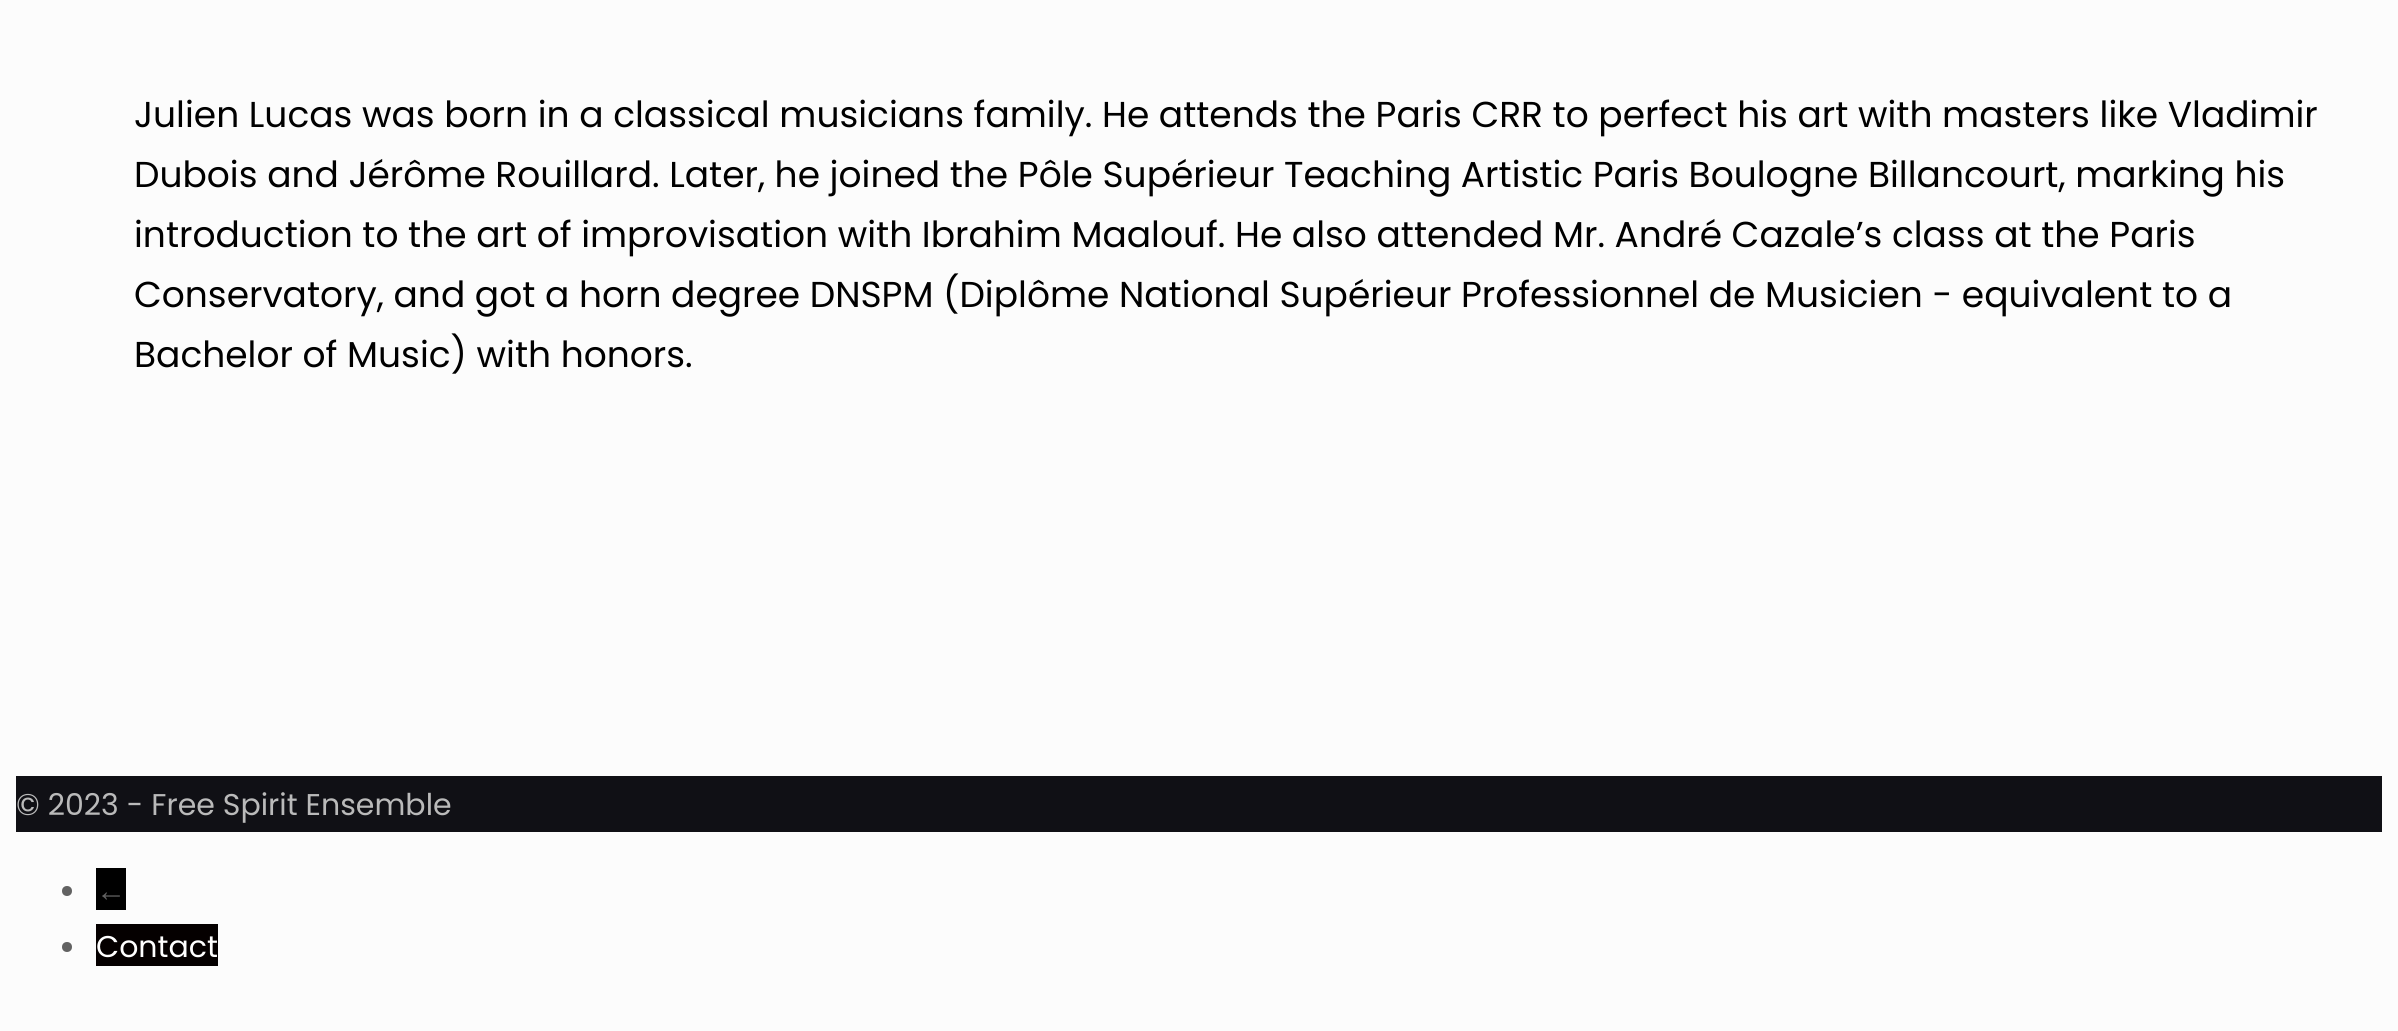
#include <cairo.h>
#include <math.h>
#include <stddef.h>

static cairo_t *c;
static void C(unsigned color){cairo_set_source_rgb(c, (color >> 16) / 255.0, (color >> 8 & 255) / 255.0, (color & 255) / 255.0);}
static void F(const char *family, double size, int italic, int bold){cairo_select_font_face(c, family, italic ? CAIRO_FONT_SLANT_ITALIC : CAIRO_FONT_SLANT_NORMAL,bold ? CAIRO_FONT_WEIGHT_BOLD : CAIRO_FONT_WEIGHT_NORMAL);cairo_set_font_size(c, size);}
static void T(double x, double y, const char *s){cairo_move_to(c, x, y);cairo_show_text(c, s);}
static void R(double x, double y, double w, double h){cairo_rectangle(c, x, y, w, h);cairo_fill(c);}
int main(void) {
cairo_surface_t *surface = cairo_image_surface_create(CAIRO_FORMAT_RGB24, 2398, 1031);
c = cairo_create(surface);
cairo_font_options_t *options = cairo_font_options_create();
cairo_font_options_set_hint_metrics(options, CAIRO_HINT_METRICS_OFF);
cairo_font_options_set_hint_style(options, CAIRO_HINT_STYLE_NONE);
cairo_set_font_options(c, options);
cairo_set_miter_limit(c, 4);
C(0xfcfcfc);
cairo_paint(c);
F("Poppins",36,0,0);
C(0x000000);
T(134,127,"Julien Lucas was born in a classical musicians family. He attends the Paris CRR to perfect his art with masters like Vladimir");
T(134,187,"Dubois and Jérôme Rouillard. Later, he joined the Pôle Supérieur Teaching Artistic Paris Boulogne Billancourt, marking his");
T(134,247,"introduction to the art of improvisation with Ibrahim Maalouf. He also attended Mr. André Cazale’s class at the Paris");
T(134,307,"Conservatory, and got a horn degree DNSPM (Diplôme National Supérieur Professionnel de Musicien - equivalent to a");
T(134,367,"Bachelor of Music) with honors.");
C(0x101015);
R(16,776,2366,56);
F("Poppins",30,0,0);
C(0xbababa);
T(16,815,"© 2023 - Free Spirit Ensemble");
C(0x626262);
cairo_new_path(c);
cairo_arc(c,67,891,5,0,2 * M_PI);
cairo_fill(c);
C(0x000000);
R(96,868,30,42);
F("Liberation Sans",30,0,0);
C(0x626262);
T(96,901,"←");
cairo_new_path(c);
cairo_arc(c,67,947,5,0,2 * M_PI);
cairo_fill(c);
C(0x050000);
R(96,924,122,42);
F("Poppins",30,0,0);
C(0xffffff);
T(96,957,"Contact");
cairo_surface_write_to_png(surface, "o.png");
cairo_font_options_destroy(options);
cairo_destroy(c);
cairo_surface_destroy(surface);
return 0;
}
